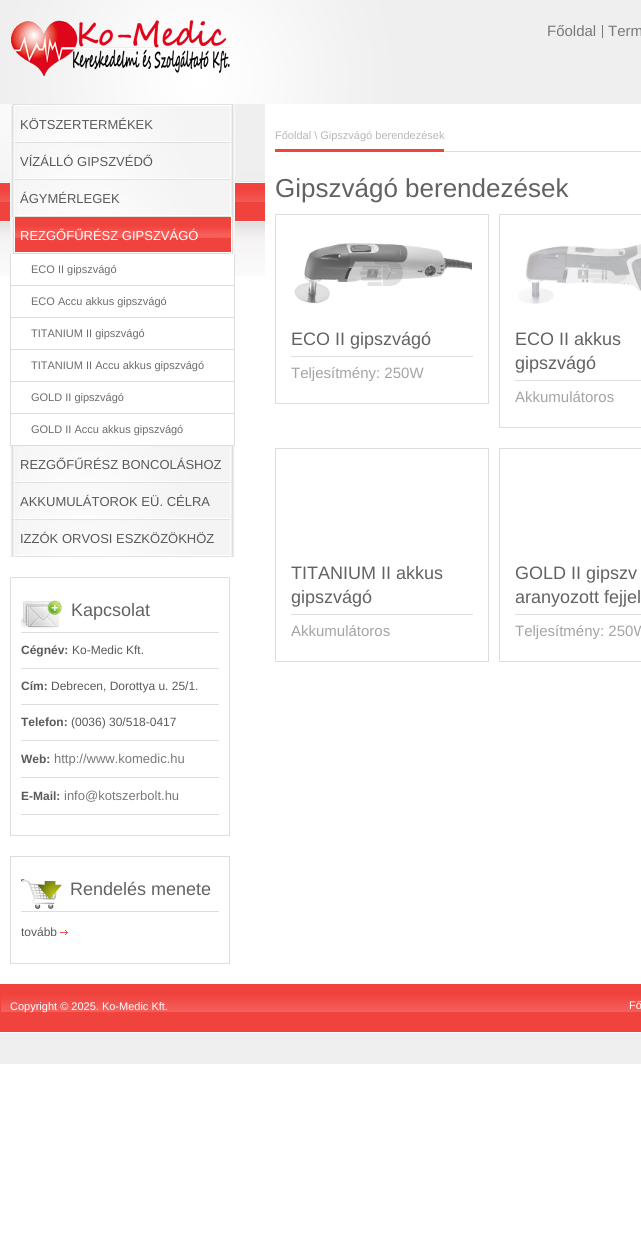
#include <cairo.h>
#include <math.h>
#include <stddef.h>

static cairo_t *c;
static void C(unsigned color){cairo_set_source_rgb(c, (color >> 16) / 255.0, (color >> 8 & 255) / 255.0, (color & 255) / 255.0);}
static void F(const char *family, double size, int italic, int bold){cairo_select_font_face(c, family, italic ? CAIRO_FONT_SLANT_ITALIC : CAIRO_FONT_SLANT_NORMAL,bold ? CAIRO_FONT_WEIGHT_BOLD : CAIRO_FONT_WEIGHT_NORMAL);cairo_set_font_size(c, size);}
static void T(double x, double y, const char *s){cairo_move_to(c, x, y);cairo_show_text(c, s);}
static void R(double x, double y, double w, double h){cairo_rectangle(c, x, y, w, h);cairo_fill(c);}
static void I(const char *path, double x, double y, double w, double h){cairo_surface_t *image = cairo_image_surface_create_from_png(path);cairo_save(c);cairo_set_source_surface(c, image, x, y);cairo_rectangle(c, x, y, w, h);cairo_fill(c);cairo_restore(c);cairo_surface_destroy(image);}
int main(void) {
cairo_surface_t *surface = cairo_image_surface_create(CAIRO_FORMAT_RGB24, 641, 1255);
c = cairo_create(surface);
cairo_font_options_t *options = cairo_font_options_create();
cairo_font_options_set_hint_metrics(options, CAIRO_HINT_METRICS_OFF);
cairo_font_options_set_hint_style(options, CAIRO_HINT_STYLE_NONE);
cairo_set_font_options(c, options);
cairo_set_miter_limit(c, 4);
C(0xffffff);
cairo_paint(c);
I("1.png",0,0,641,104);
I("2.png",11,20,220,56);
F("Liberation Sans",15,0,0);
C(0x797979);
T(547,36,"Főoldal");
R(602,25,1,13);
T(608,36,"Term");
I("3.png",0,258,265,18);
I("4.png",0,104,265,154);
C(0xf4f4f4);
R(10,104,225,150);
I("5.png",13,104,220,2);
I("6.png",10,106,225,37);
F("Liberation Sans",13,0,0);
C(0x595959);
T(20,129,"KÖTSZERTERMÉKEK");
I("6.png",10,143,225,37);
T(20,166,"VÍZÁLLÓ GIPSZVÉDŐ");
I("6.png",10,180,225,37);
T(20,203,"ÁGYMÉRLEGEK");
I("7.png",13,217,220,37);
C(0xffffff);
T(20,240,"REZGŐFŰRÉSZ GIPSZVÁGÓ");
R(11,254,223,22);
C(0xdddddd);
R(234,254,1,192);
R(10,285,225,1);
R(10,254,1,32);
F("Liberation Sans",11,0,0);
C(0x6c6c6c);
T(31,273,"ECO II gipszvágó");
C(0xdddddd);
R(10,317,225,1);
R(10,286,1,32);
C(0x6c6c6c);
T(31,305,"ECO Accu akkus gipszvágó");
C(0xdddddd);
R(10,349,225,1);
R(10,318,1,32);
C(0x6c6c6c);
T(31,337,"TITANIUM II gipszvágó");
C(0xdddddd);
R(10,381,225,1);
R(10,350,1,32);
C(0x6c6c6c);
T(31,369,"TITANIUM II Accu akkus gipszvágó");
C(0xdddddd);
R(10,413,225,1);
R(10,382,1,32);
C(0x6c6c6c);
T(31,401,"GOLD II gipszvágó");
C(0xdddddd);
R(10,445,225,1);
R(10,414,1,32);
C(0x6c6c6c);
T(31,433,"GOLD II Accu akkus gipszvágó");
I("6.png",10,446,225,37);
F("Liberation Sans",13,0,0);
C(0x595959);
T(20,469,"REZGŐFŰRÉSZ BONCOLÁSHOZ");
I("6.png",10,483,225,37);
T(20,506,"AKKUMULÁTOROK EÜ. CÉLRA");
I("6.png",10,520,225,37);
T(20,543,"IZZÓK ORVOSI ESZKÖZÖKHÖZ");
cairo_rectangle(c,10.5,577.5,219,258);
C(0xdddddd);
cairo_set_line_width(c,1);
cairo_stroke(c);
I("8.png",21,600,41,29);
F("Liberation Sans",18,0,0);
C(0x626262);
T(71,616,"Kapcsolat");
C(0xdddddd);
R(21,632,198,1);
R(21,668,198,1);
F("Liberation Sans",12,0,1);
C(0x595959);
T(21,654,"Cégnév:");
F("Liberation Sans",12,0,0);
T(72,654,"Ko-Medic Kft.");
C(0xdddddd);
R(21,704,198,1);
F("Liberation Sans",12,0,1);
C(0x595959);
T(21,690,"Cím:");
F("Liberation Sans",12,0,0);
T(51,690,"Debrecen, Dorottya u. 25/1.");
C(0xdddddd);
R(21,740,198,1);
F("Liberation Sans",12,0,1);
C(0x595959);
T(21,726,"Telefon:");
F("Liberation Sans",12,0,0);
T(71,726,"(0036) 30/518-0417");
C(0xdddddd);
R(21,777,198,1);
F("Liberation Sans",12,0,1);
C(0x595959);
T(21,763,"Web:");
F("Liberation Sans",13,0,0);
C(0x797979);
T(54,763,"http://www.komedic.hu");
C(0xdddddd);
R(21,814,198,1);
F("Liberation Sans",12,0,1);
C(0x595959);
T(21,800,"E-Mail:");
F("Liberation Sans",13,0,0);
C(0x797979);
T(64,800,"info@kotszerbolt.hu");
cairo_rectangle(c,10.5,856.5,219,107);
C(0xdddddd);
cairo_stroke(c);
I("9.png",21,879,41,30);
F("Liberation Sans",18,0,0);
C(0x626262);
T(70,895,"Rendelés menete");
C(0xdddddd);
R(21,911,198,1);
F("Liberation Sans",12,0,0);
C(0x595959);
T(21,936,"tovább");
I("10.png",60,930,8,5);
C(0xdddddd);
R(444,151,197,1);
F("Liberation Sans",11,0,0);
C(0xb7b7b7);
T(275,139,"Főoldal \\ Gipszvágó berendezések");
C(0xf1433e);
R(275,149,169,3);
F("Liberation Sans",26,0,0);
C(0x626262);
T(275,197,"Gipszvágó berendezések");
cairo_rectangle(c,275.5,214.5,213,189);
C(0xdddddd);
cairo_stroke(c);
I("11.png",294,243,178,61);
F("Liberation Sans",18,0,0);
C(0x626262);
T(291,345,"ECO II gipszvágó");
C(0xdddddd);
R(291,356,182,1);
F("Liberation Sans",15,0,0);
C(0xa4a4a4);
T(291,378,"Teljesítmény: 250W");
cairo_rectangle(c,499.5,214.5,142,213);
C(0xdddddd);
cairo_stroke(c);
I("12.png",518,244,123,60);
F("Liberation Sans",18,0,0);
C(0x626262);
T(515,345,"ECO II akkus");
T(515,369,"gipszvágó");
C(0xdddddd);
R(515,380,126,1);
F("Liberation Sans",15,0,0);
C(0xa4a4a4);
T(515,402,"Akkumulátoros");
cairo_rectangle(c,275.5,448.5,213,213);
C(0xdddddd);
cairo_stroke(c);
F("Liberation Sans",18,0,0);
C(0x626262);
T(291,579,"TITANIUM II akkus");
T(291,603,"gipszvágó");
C(0xdddddd);
R(291,614,182,1);
F("Liberation Sans",15,0,0);
C(0xa4a4a4);
T(291,636,"Akkumulátoros");
cairo_rectangle(c,499.5,448.5,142,213);
C(0xdddddd);
cairo_stroke(c);
F("Liberation Sans",18,0,0);
C(0x626262);
T(515,579,"GOLD II gipszv");
T(515,603,"aranyozott fejjel");
C(0xdddddd);
R(515,614,126,1);
F("Liberation Sans",15,0,0);
C(0xa4a4a4);
T(515,636,"Teljesítmény: 250W");
C(0xefefef);
R(0,1033,641,31);
I("13.png",0,984,641,49);
F("Liberation Sans",11,0,0);
C(0xffffff);
T(10,1010,"Copyright © 2025. Ko-Medic Kft.");
T(629,1009,"Fő");
cairo_surface_write_to_png(surface, "o.png");
cairo_font_options_destroy(options);
cairo_destroy(c);
cairo_surface_destroy(surface);
return 0;
}
